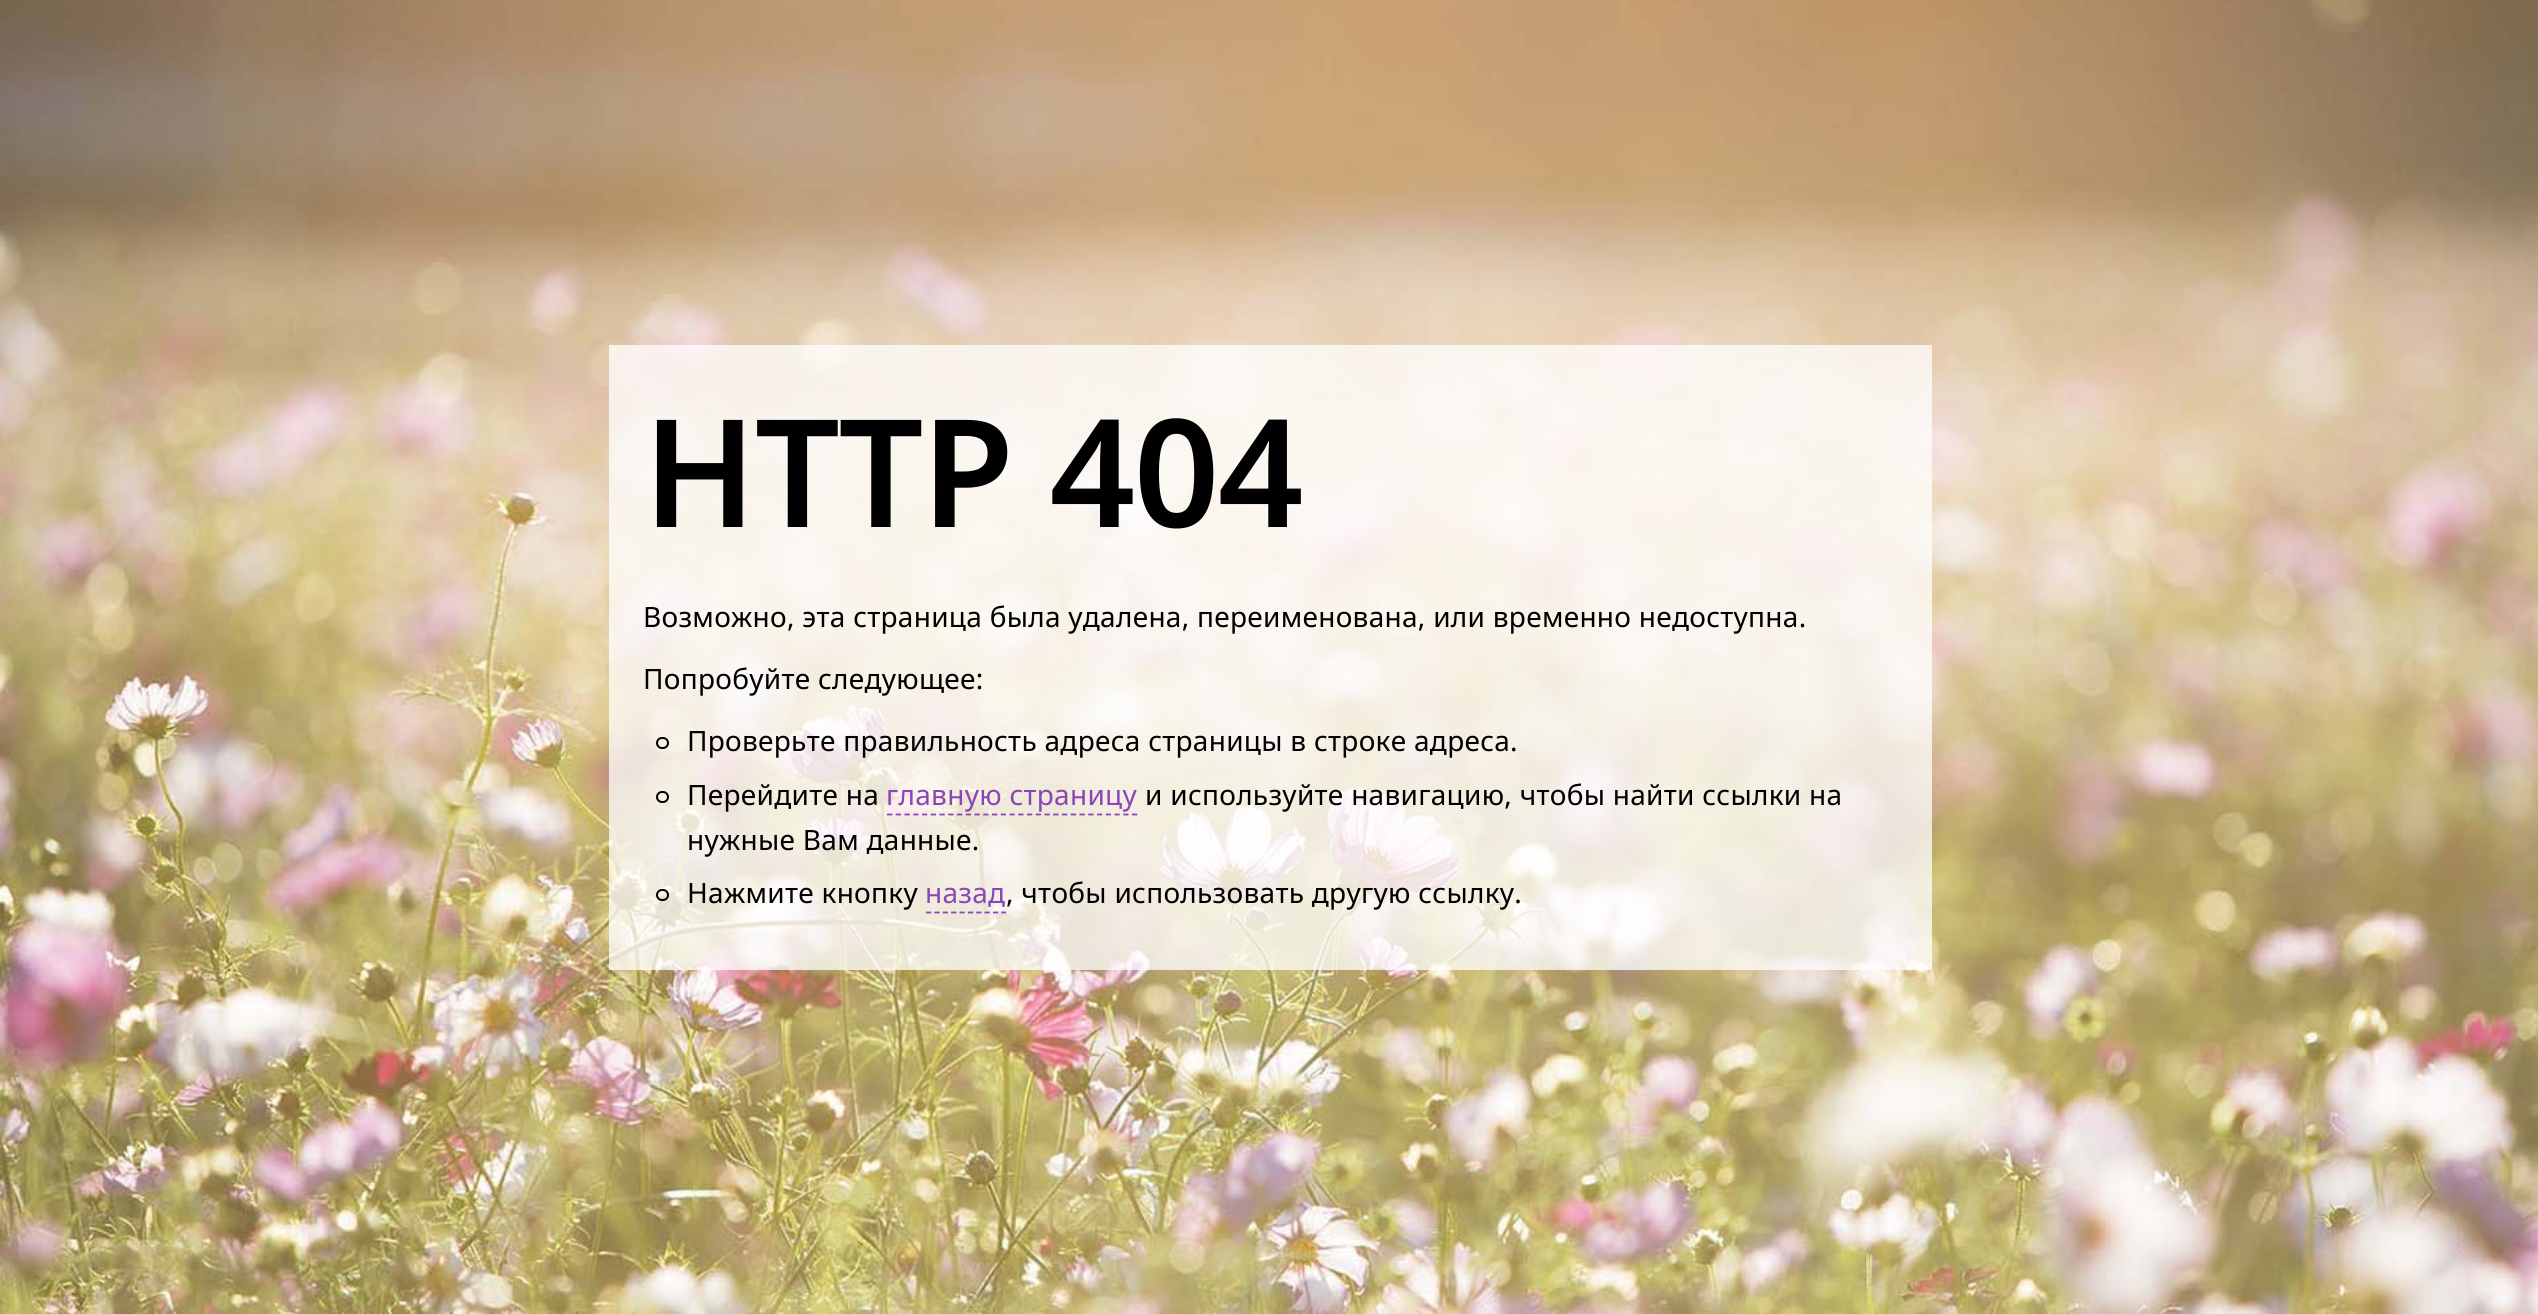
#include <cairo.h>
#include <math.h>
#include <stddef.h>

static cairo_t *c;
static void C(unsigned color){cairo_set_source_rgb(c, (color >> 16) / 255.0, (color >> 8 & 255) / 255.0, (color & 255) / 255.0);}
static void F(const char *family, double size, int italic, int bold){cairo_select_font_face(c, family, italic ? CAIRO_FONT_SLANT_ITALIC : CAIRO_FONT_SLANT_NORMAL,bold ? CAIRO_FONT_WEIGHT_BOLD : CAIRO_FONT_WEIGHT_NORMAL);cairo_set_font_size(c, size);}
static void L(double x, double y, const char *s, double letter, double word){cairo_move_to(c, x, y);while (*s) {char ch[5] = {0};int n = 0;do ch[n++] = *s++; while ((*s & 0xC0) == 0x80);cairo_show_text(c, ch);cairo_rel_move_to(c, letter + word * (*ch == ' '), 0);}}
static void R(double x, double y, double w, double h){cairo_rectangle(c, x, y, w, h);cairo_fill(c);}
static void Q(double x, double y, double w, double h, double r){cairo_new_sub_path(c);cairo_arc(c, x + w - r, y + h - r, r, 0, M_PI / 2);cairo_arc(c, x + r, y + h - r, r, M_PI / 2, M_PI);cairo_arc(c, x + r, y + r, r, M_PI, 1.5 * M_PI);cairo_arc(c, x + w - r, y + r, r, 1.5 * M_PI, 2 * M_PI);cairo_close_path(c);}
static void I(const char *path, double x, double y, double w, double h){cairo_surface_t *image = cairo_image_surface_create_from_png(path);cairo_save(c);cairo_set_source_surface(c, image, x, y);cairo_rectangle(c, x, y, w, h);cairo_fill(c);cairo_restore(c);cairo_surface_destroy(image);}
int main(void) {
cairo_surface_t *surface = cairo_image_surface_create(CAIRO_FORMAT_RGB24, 2538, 1314);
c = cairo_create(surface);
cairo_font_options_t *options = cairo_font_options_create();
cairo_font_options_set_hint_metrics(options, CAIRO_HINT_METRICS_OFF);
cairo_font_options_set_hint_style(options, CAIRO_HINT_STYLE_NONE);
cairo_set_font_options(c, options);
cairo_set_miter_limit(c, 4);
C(0xffffff);
cairo_paint(c);
I("1.png",0,0,2538,1314);
cairo_set_source_rgba(c,1,1,1,0.75);
R(609,345,1323,625);
F("Noto Sans SemiBold",150,0,0);
C(0x000000);
L(643,527,"HTTP 404",-1.75,0);
F("Noto Sans",28,0,0);
L(643,627,"Возможно, эта страница была удалена, переименована, или временно недоступна.",.28,0);
L(643,689,"Попробуйте следующее:",.28,0);
Q(657,738,11,10,5);
cairo_stroke(c);
L(687,751,"Проверьте правильность адреса страницы в строке адреса.",.28,0);
Q(657,792,11,10,5);
cairo_stroke(c);
L(687,805,"Перейдите на",.28,0);
C(0x8b45b5);
L(886,805,"главную страницу",.28,0);
cairo_new_path(c);
cairo_move_to(c,887,814.5);
cairo_line_to(c,1137.5,814.5);
cairo_set_line_width(c,1.8);
cairo_set_dash(c,(double[]){5.25,3.5},2,0);
cairo_stroke(c);
C(0x000000);
L(1145,805,"и используйте навигацию, чтобы найти ссылки на",.28,0);
L(687,850,"нужные Вам данные.",.28,0);
Q(657,890,11,10,5);
cairo_set_line_width(c,2);
cairo_set_dash(c,NULL,0,0);
cairo_stroke(c);
L(687,903,"Нажмите кнопку",.28,0);
C(0x8b45b5);
L(925,903,"назад",.28,0);
cairo_new_path(c);
cairo_move_to(c,926,912.5);
cairo_line_to(c,1006,912.5);
cairo_set_line_width(c,1.8);
cairo_set_dash(c,(double[]){5.25,3.12},2,0);
cairo_stroke(c);
C(0x000000);
L(1006,903,", чтобы использовать другую ссылку.",.28,0);
cairo_surface_write_to_png(surface, "o.png");
cairo_font_options_destroy(options);
cairo_destroy(c);
cairo_surface_destroy(surface);
return 0;
}
